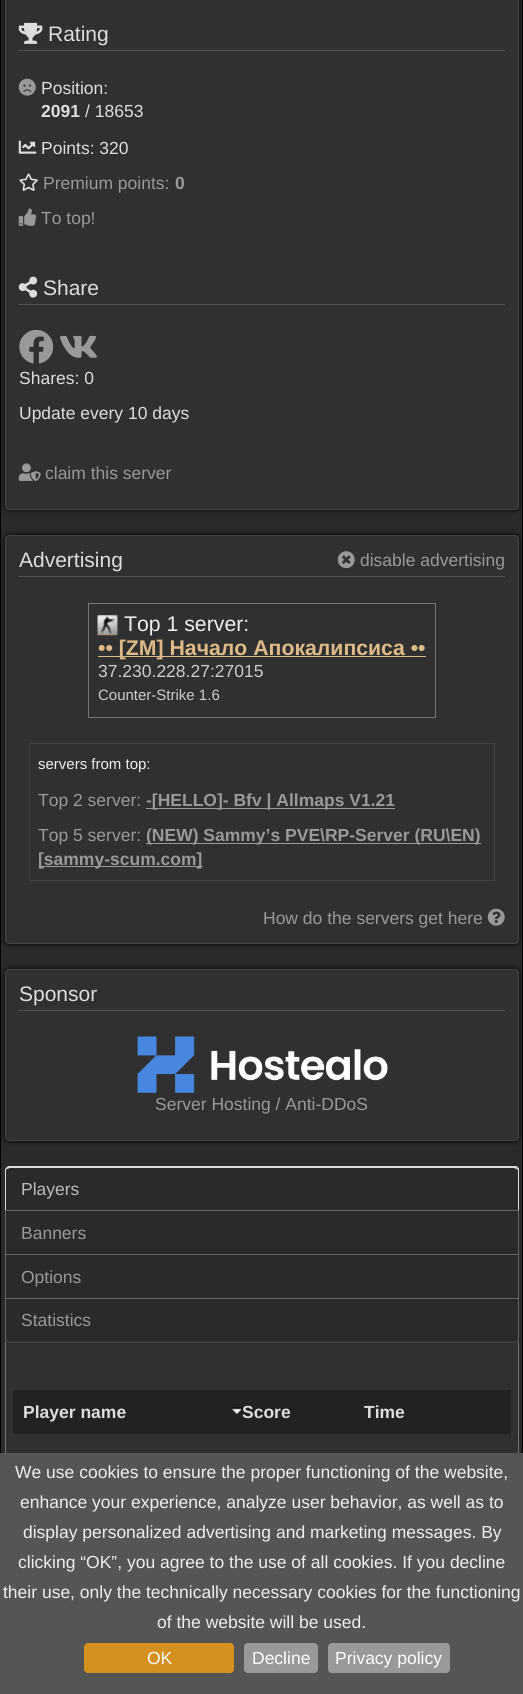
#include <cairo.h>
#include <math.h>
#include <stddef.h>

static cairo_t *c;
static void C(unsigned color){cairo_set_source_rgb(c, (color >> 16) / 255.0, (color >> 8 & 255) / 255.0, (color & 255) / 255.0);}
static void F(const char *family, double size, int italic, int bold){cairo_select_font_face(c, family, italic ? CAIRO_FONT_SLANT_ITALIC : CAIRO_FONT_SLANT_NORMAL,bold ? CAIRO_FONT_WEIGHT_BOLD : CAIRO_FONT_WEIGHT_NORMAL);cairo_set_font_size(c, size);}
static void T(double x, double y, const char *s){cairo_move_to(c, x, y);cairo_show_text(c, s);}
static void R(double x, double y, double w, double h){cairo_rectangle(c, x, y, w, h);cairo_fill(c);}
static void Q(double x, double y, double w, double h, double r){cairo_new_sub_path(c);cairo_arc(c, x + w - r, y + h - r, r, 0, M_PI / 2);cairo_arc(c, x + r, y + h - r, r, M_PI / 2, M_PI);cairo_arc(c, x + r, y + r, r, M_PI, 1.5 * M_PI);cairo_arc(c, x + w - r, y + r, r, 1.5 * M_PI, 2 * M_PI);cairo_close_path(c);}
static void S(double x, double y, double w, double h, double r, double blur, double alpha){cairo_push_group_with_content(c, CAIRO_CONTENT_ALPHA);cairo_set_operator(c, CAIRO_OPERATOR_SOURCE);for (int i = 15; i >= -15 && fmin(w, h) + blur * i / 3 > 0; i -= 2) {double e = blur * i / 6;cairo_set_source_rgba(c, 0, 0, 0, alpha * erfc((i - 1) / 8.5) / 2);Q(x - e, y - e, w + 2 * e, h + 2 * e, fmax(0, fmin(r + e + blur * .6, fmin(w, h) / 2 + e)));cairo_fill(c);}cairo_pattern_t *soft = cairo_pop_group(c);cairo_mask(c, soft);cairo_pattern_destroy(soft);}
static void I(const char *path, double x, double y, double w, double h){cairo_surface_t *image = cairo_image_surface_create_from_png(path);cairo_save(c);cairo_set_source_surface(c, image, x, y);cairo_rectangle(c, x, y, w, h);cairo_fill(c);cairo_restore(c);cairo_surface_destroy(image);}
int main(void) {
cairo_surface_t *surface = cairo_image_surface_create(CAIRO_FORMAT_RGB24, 523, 1694);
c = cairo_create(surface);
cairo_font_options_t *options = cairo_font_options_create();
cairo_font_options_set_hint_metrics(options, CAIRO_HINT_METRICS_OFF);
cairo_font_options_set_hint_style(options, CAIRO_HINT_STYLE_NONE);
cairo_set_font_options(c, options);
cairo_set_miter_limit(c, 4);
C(0x2a2a2a);
cairo_paint(c);
C(0x000000);
cairo_new_path(c);
cairo_move_to(c,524,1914);
cairo_curve_to(c,523,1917,522,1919,520,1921);
cairo_line_to(c,519,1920);
cairo_curve_to(c,521,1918,522,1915,522,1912);
cairo_line_to(c,522,-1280);
cairo_line_to(c,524,-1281);
cairo_close_path(c);
cairo_fill(c);
cairo_new_path(c);
cairo_move_to(c,1,-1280);
cairo_line_to(c,1,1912);
cairo_curve_to(c,1,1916,2,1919,4,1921);
cairo_curve_to(c,2,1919,0,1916,0,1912);
cairo_line_to(c,0,-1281);
cairo_close_path(c);
cairo_fill(c);
cairo_save(c);
cairo_set_fill_rule(c,CAIRO_FILL_RULE_EVEN_ODD);
cairo_new_path(c);
cairo_move_to(c,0,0);
cairo_line_to(c,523,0);
cairo_line_to(c,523,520);
cairo_line_to(c,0,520);
cairo_close_path(c);
cairo_move_to(c,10,-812);
cairo_line_to(c,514,-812);
cairo_curve_to(c,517,-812,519,-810,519,-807);
cairo_line_to(c,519,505);
cairo_curve_to(c,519,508,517,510,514,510);
cairo_line_to(c,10,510);
cairo_curve_to(c,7,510,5,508,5,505);
cairo_line_to(c,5,-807);
cairo_curve_to(c,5,-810,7,-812,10,-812);
cairo_close_path(c);
cairo_clip(c);
C(0x000000);
S(5,-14,514,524,5,3,1);
cairo_restore(c);
cairo_set_source_rgba(c,0.2,0.2,0.2,0.7);
Q(5.5,-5.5,513,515,4.5);
cairo_fill_preserve(c);
C(0x454545);
cairo_set_line_width(c,1);
cairo_stroke(c);
C(0x555555);
R(19,50,486,1);
I("1.png",18,22,25,22);
F("Liberation Sans",21,0,0);
C(0xdddddd);
T(48,41,"Rating");
I("2.png",18,78,18,18);
F("Liberation Sans",17.5,0,0);
T(41,94,"Position:");
F("Liberation Sans",17.5,0,1);
T(41,117,"2091");
F("Liberation Sans",17.5,0,0);
T(85,117,"/ 18653");
I("3.png",18,140,19,14);
T(41,154,"Points: 320");
I("4.png",19,173,19,18);
C(0x999999);
T(43,189,"Premium points:");
F("Liberation Sans",17.5,0,1);
T(175,189,"0");
I("5.png",18,208,19,18);
F("Liberation Sans",17.5,0,0);
T(41,224,"To top!");
C(0x555555);
R(19,304,486,1);
I("6.png",18,276,20,22);
F("Liberation Sans",21,0,0);
C(0xdddddd);
T(43,295,"Share");
I("7.png",19,329,35,35);
I("8.png",60,335,37,23);
F("Liberation Sans",17.5,0,0);
T(19,384,"Shares: 0");
T(19,419,"Update every 10 days");
I("9.png",18,463,23,18);
C(0x999999);
T(45,479,"сlaim this server");
cairo_save(c);
cairo_set_fill_rule(c,CAIRO_FILL_RULE_EVEN_ODD);
cairo_new_path(c);
cairo_move_to(c,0,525);
cairo_line_to(c,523,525);
cairo_line_to(c,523,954);
cairo_line_to(c,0,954);
cairo_close_path(c);
cairo_move_to(c,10,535);
cairo_line_to(c,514,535);
cairo_curve_to(c,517,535,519,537,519,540);
cairo_line_to(c,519,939);
cairo_curve_to(c,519,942,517,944,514,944);
cairo_line_to(c,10,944);
cairo_curve_to(c,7,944,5,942,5,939);
cairo_line_to(c,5,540);
cairo_curve_to(c,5,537,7,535,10,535);
cairo_close_path(c);
cairo_clip(c);
C(0x000000);
S(5,535,514,409,5,3,1);
cairo_restore(c);
cairo_set_source_rgba(c,0.2,0.2,0.2,0.7);
Q(5.5,535.5,513,408,4.5);
cairo_fill_preserve(c);
C(0x454545);
cairo_stroke(c);
C(0x555555);
R(19,576,486,1);
F("Liberation Sans",21,0,0);
C(0xdddddd);
T(19,567,"Advertising");
I("10.png",337,551,18,18);
F("Liberation Sans",17.5,0,0);
C(0x999999);
T(360,566,"disable advertising");
cairo_rectangle(c,88.5,603.5,347,114);
C(0x777777);
cairo_stroke(c);
I("11.png",97,615,21,21);
F("Liberation Sans",21.25,0,0);
C(0xeeeeee);
T(124,631,"Top 1 server:");
C(0xddbb88);
R(98,656,328,1);
F("Liberation Sans",21.25,0,1);
T(98,655,"•• [ZM] Начало Апокалипсиса ••");
F("Liberation Sans",17.5,0,0);
C(0xcccccc);
T(98,677,"37.230.228.27:27015");
F("Liberation Sans",15,0,0);
T(98,700,"Counter-Strike 1.6");
cairo_rectangle(c,29.5,743.5,465,137);
C(0x444444);
cairo_stroke(c);
C(0xeeeeee);
T(38,769,"servers from top:");
F("Liberation Sans",17.5,0,0);
C(0x999999);
T(38,806,"Top 2 server:");
R(146,808,249,1);
F("Liberation Sans",17.5,0,1);
T(146,806,"-[HELLO]- Bfv | Allmaps V1.21");
F("Liberation Sans",17.5,0,0);
T(38,841,"Top 5 server:");
R(146,843,335,1);
F("Liberation Sans",17.5,0,1);
T(146,841,"(NEW) Sammy’s PVE\\RP-Server (RU\\EN)");
R(39,866,164,1);
T(38,865,"[sammy-scum.com]");
F("Liberation Sans",17.5,0,0);
T(263,924,"How do the servers get here");
I("12.png",487,908,18,18);
cairo_save(c);
cairo_set_fill_rule(c,CAIRO_FILL_RULE_EVEN_ODD);
cairo_new_path(c);
cairo_move_to(c,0,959);
cairo_line_to(c,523,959);
cairo_line_to(c,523,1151);
cairo_line_to(c,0,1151);
cairo_close_path(c);
cairo_move_to(c,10,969);
cairo_line_to(c,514,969);
cairo_curve_to(c,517,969,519,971,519,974);
cairo_line_to(c,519,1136);
cairo_curve_to(c,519,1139,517,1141,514,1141);
cairo_line_to(c,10,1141);
cairo_curve_to(c,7,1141,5,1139,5,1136);
cairo_line_to(c,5,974);
cairo_curve_to(c,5,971,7,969,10,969);
cairo_close_path(c);
cairo_clip(c);
C(0x000000);
S(5,969,514,172,5,3,1);
cairo_restore(c);
cairo_set_source_rgba(c,0.2,0.2,0.2,0.7);
Q(5.5,969.5,513,171,4.5);
cairo_fill_preserve(c);
C(0x454545);
cairo_stroke(c);
C(0x555555);
R(19,1010,486,1);
F("Liberation Sans",21,0,0);
C(0xdddddd);
T(19,1001,"Sponsor");
I("13.png",137,1036,251,57);
F("Liberation Sans",17.5,0,0);
C(0x999999);
T(155,1110,"Server Hosting / Anti-DDoS");
C(0xdddddd);
cairo_new_path(c);
cairo_move_to(c,10,1168);
cairo_line_to(c,7,1169);
cairo_line_to(c,6,1168);
cairo_line_to(c,8,1166);
cairo_line_to(c,516,1166);
cairo_line_to(c,518,1167);
cairo_line_to(c,516,1169);
cairo_line_to(c,514,1168);
cairo_close_path(c);
cairo_fill(c);
cairo_new_path(c);
cairo_move_to(c,519,1211);
cairo_line_to(c,518,1210);
cairo_line_to(c,518,1170);
cairo_line_to(c,516,1169);
cairo_line_to(c,518,1167);
cairo_line_to(c,519,1169);
cairo_close_path(c);
cairo_fill(c);
cairo_new_path(c);
cairo_move_to(c,5,1171);
cairo_line_to(c,5,1211);
cairo_line_to(c,6,1210);
cairo_line_to(c,6,1170);
cairo_line_to(c,7,1169);
cairo_line_to(c,6,1168);
cairo_curve_to(c,5,1168,5,1170,5,1171);
cairo_close_path(c);
cairo_fill(c);
C(0xbbbbbb);
T(21,1195,"Players");
cairo_rectangle(c,5.5,1210.5,513,44);
C(0x666666);
cairo_stroke(c);
C(0x999999);
T(21,1239,"Banners");
cairo_rectangle(c,5.5,1254.5,513,44);
C(0x666666);
cairo_stroke(c);
C(0x999999);
T(21,1283,"Options");
cairo_new_path(c);
cairo_move_to(c,5.5,1298.5);
cairo_line_to(c,518.5,1298.5);
cairo_line_to(c,518.5,1338);
cairo_curve_to(c,518.5,1340.5,516.5,1342.5,514,1342.5);
cairo_line_to(c,10,1342.5);
cairo_curve_to(c,7.5,1342.5,5.5,1340.5,5.5,1338);
cairo_close_path(c);
C(0x666666);
cairo_stroke(c);
C(0x999999);
T(21,1326,"Statistics");
cairo_set_source_rgba(c,0.2,0.2,0.2,0.7);
R(5,1341,514,112);
C(0x777777);
cairo_new_path(c);
cairo_move_to(c,519,1341);
cairo_line_to(c,519,1503);
cairo_line_to(c,517,1505);
cairo_line_to(c,516,1504);
cairo_line_to(c,518,1501);
cairo_line_to(c,518,1342);
cairo_close_path(c);
cairo_fill(c);
cairo_new_path(c);
cairo_move_to(c,5,1341);
cairo_line_to(c,5,1502);
cairo_line_to(c,7,1505);
cairo_line_to(c,7,1504);
cairo_line_to(c,6,1501);
cairo_line_to(c,6,1342);
cairo_close_path(c);
cairo_fill(c);
C(0x222222);
R(13,1390,498,44);
F("Liberation Sans",17.5,0,1);
C(0xdddddd);
T(23,1418,"Player name");
I("14.png",232,1407,12,9);
T(242,1418,"Score");
T(364,1418,"Time");
C(0x444444);
R(511,1433,2,1);
C(0x555555);
R(0,1453,523,241);
F("Liberation Sans",17.5,0,0);
C(0xeeeeee);
T(15,1478,"We use cookies to ensure the proper functioning of the website,");
T(20,1508,"enhance your experience, analyze user behavior, as well as to");
T(23,1538,"display personalized advertising and marketing messages. By");
T(18,1568,"clicking “OK”, you agree to the use of all cookies. If you decline");
T(3,1598,"their use, only the technically necessary cookies for the functioning");
T(157,1628,"of the website will be used.");
C(0xd59120);
Q(84,1643,150,30,4);
cairo_fill(c);
C(0xffffff);
T(147,1664,"OK");
C(0x999999);
Q(244,1643,74,30,4);
cairo_fill(c);
C(0xffffff);
T(252,1664,"Decline");
C(0x999999);
Q(328,1643,122,30,4);
cairo_fill(c);
C(0xffffff);
T(335,1664,"Privacy policy");
cairo_surface_write_to_png(surface, "o.png");
cairo_font_options_destroy(options);
cairo_destroy(c);
cairo_surface_destroy(surface);
return 0;
}
